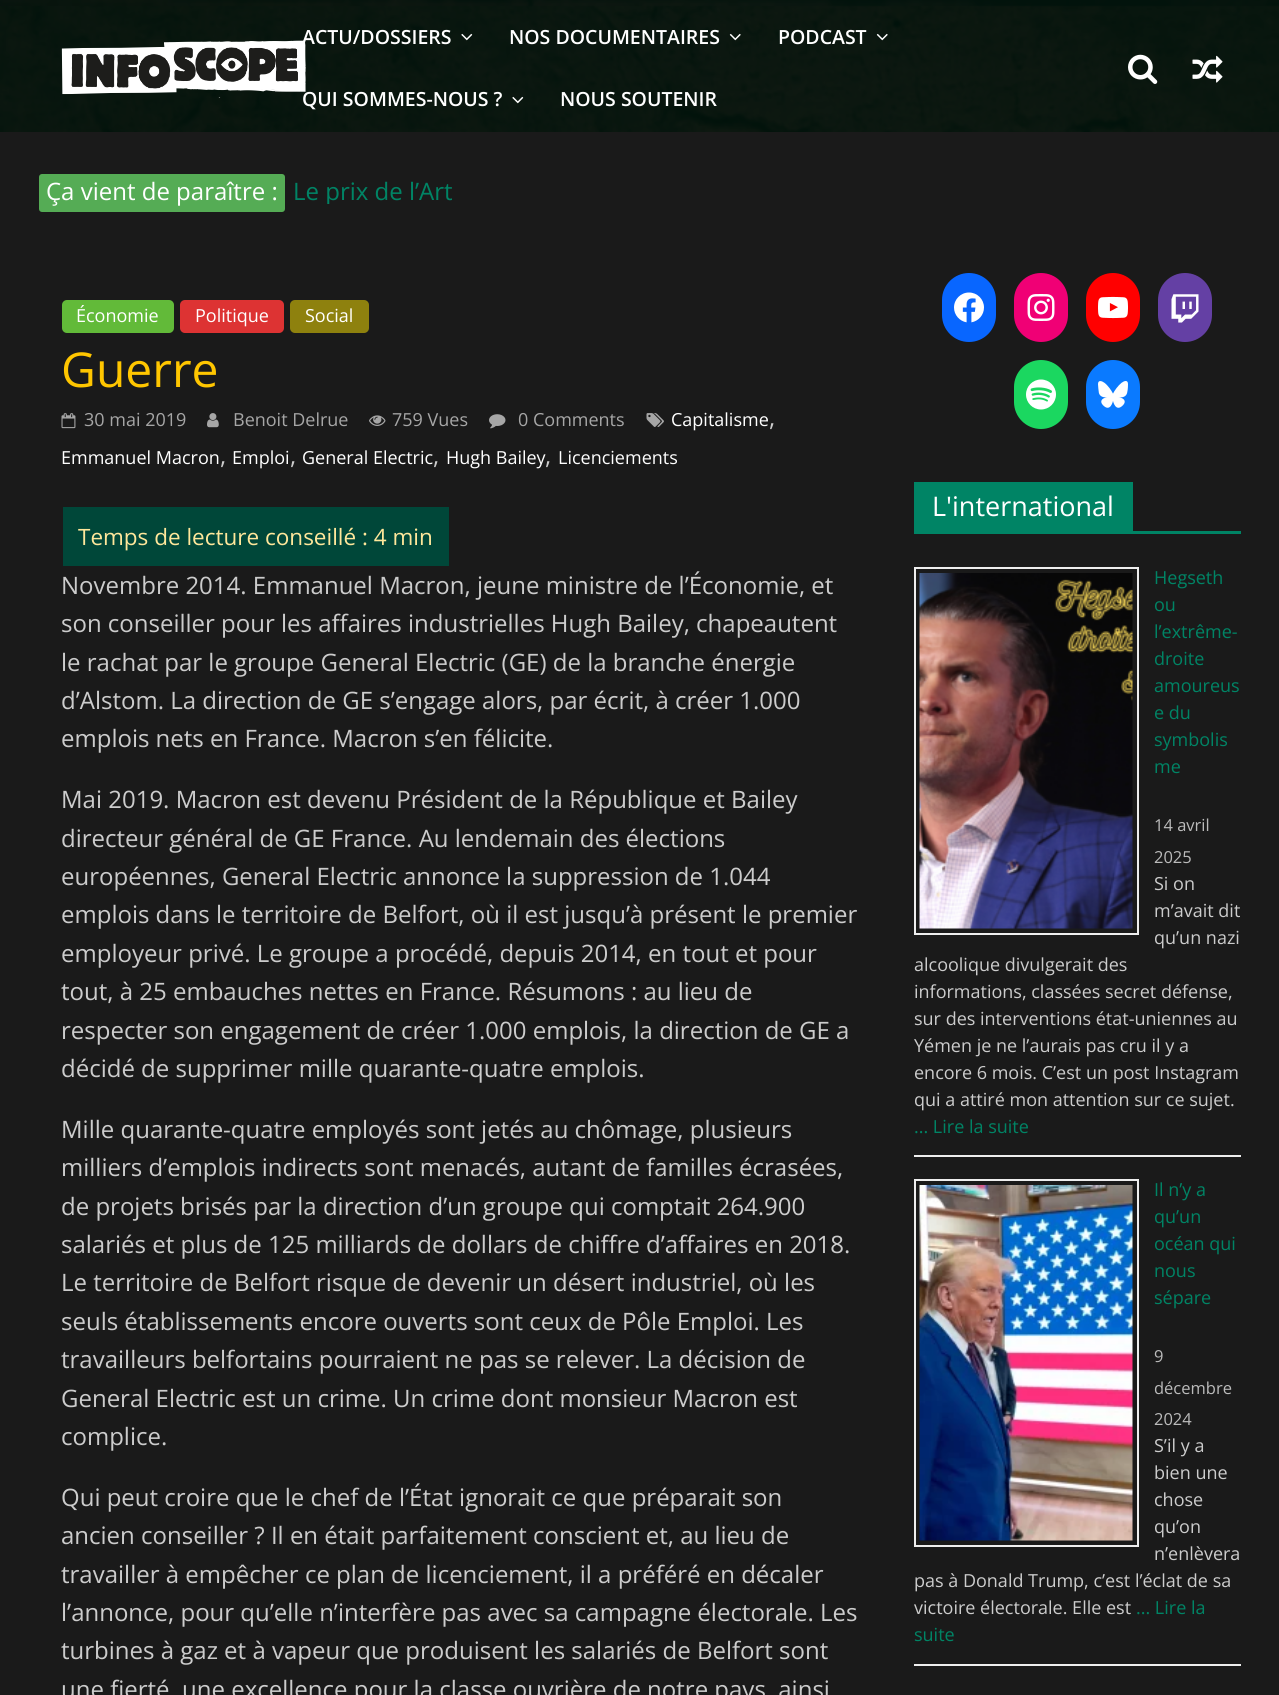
#include <cairo.h>
#include <math.h>
#include <stddef.h>

static cairo_t *c;
static void C(unsigned color){cairo_set_source_rgb(c, (color >> 16) / 255.0, (color >> 8 & 255) / 255.0, (color & 255) / 255.0);}
static void F(const char *family, double size, int italic, int bold){cairo_select_font_face(c, family, italic ? CAIRO_FONT_SLANT_ITALIC : CAIRO_FONT_SLANT_NORMAL,bold ? CAIRO_FONT_WEIGHT_BOLD : CAIRO_FONT_WEIGHT_NORMAL);cairo_set_font_size(c, size);}
static void T(double x, double y, const char *s){cairo_move_to(c, x, y);cairo_show_text(c, s);}
static void R(double x, double y, double w, double h){cairo_rectangle(c, x, y, w, h);cairo_fill(c);}
static void Q(double x, double y, double w, double h, double r){cairo_new_sub_path(c);cairo_arc(c, x + w - r, y + h - r, r, 0, M_PI / 2);cairo_arc(c, x + r, y + h - r, r, M_PI / 2, M_PI);cairo_arc(c, x + r, y + r, r, M_PI, 1.5 * M_PI);cairo_arc(c, x + w - r, y + r, r, 1.5 * M_PI, 2 * M_PI);cairo_close_path(c);}
static void I(const char *path, double x, double y, double w, double h){cairo_surface_t *image = cairo_image_surface_create_from_png(path);cairo_save(c);cairo_set_source_surface(c, image, x, y);cairo_rectangle(c, x, y, w, h);cairo_fill(c);cairo_restore(c);cairo_surface_destroy(image);}
int main(void) {
cairo_surface_t *surface = cairo_image_surface_create(CAIRO_FORMAT_RGB24, 1279, 1695);
c = cairo_create(surface);
cairo_font_options_t *options = cairo_font_options_create();
cairo_font_options_set_hint_metrics(options, CAIRO_HINT_METRICS_OFF);
cairo_font_options_set_hint_style(options, CAIRO_HINT_STYLE_NONE);
cairo_set_font_options(c, options);
cairo_set_miter_limit(c, 4);
C(0x1a1a1a);
cairo_paint(c);
I("1.png",0,0,1279,132);
I("2.png",61,40,245,58);
F("Open Sans SemiBold",19.5,0,0);
C(0xffffff);
T(302,44,"ACTU/DOSSIERS");
I("3.png",461,33,12,8);
T(509,44,"NOS DOCUMENTAIRES");
I("4.png",729,33,12,8);
T(778,44,"PODCAST");
I("5.png",876,33,12,8);
T(302,106,"QUI SOMMES-NOUS ?");
I("6.png",512,96,12,8);
T(560,106,"NOUS SOUTENIR");
I("7.png",1128,54,30,30);
I("8.png",1192,55,31,28);
C(0x55ac55);
Q(39,174,246,38,3);
cairo_fill(c);
F("Open Sans",24,0,0);
C(0xffffff);
T(46,200,"Ça vient de paraître :");
cairo_save(c);
cairo_rectangle(c,285,174,360,30);
cairo_clip(c);
C(0x008465);
T(293,200,"Le prix de l’Art");
cairo_restore(c);
C(0x62ba39);
Q(62,300,112,33,5);
cairo_fill(c);
F("Open Sans",18,0,0);
C(0xffffff);
T(76,322,"Économie");
C(0xdd3333);
Q(180,300,104,33,5);
cairo_fill(c);
C(0xffffff);
T(195,322,"Politique");
C(0x8e810e);
Q(290,300,79,33,5);
cairo_fill(c);
C(0xffffff);
T(305,322,"Social");
F("Open Sans",48,0,0);
C(0xffc600);
T(61,387,"Guerre");
I("9.png",646,413,18,14);
F("Open Sans",18,0,0);
C(0xffffff);
T(671,426,"Capitalisme");
F("Open Sans",24,0,0);
C(0xcccccc);
T(769,426,",");
F("Open Sans",18,0,0);
C(0xffffff);
T(61,464,"Emmanuel Macron");
F("Open Sans",24,0,0);
C(0xcccccc);
T(220,464,",");
F("Open Sans",18,0,0);
C(0xffffff);
T(232,464,"Emploi");
F("Open Sans",24,0,0);
C(0xcccccc);
T(290,464,",");
F("Open Sans",18,0,0);
C(0xffffff);
T(302,464,"General Electric");
F("Open Sans",24,0,0);
C(0xcccccc);
T(433,464,",");
F("Open Sans",18,0,0);
C(0xffffff);
T(446,464,"Hugh Bailey");
F("Open Sans",24,0,0);
C(0xcccccc);
T(545,464,",");
F("Open Sans",18,0,0);
C(0xffffff);
T(558,464,"Licenciements");
I("10.png",61,413,15,16);
C(0xa6a6a6);
T(84,426,"30 mai 2019");
I("11.png",207,413,12,15);
T(233,426,"Benoit Delrue");
I("12.png",369,415,17,11);
T(392,426,"759 Vues");
I("13.png",489,414,17,15);
T(518,426,"0 Comments");
C(0x004739);
R(63,507,386,59);
F("Open Sans",22.5,0,0);
C(0xffe79b);
T(78,545,"Temps de lecture conseillé : 4 min");
F("Open Sans",24,0,0);
C(0xcccccc);
T(61,594,"Novembre 2014. Emmanuel Macron, jeune ministre de l’Économie, et");
T(61,632,"son conseiller pour les affaires industrielles Hugh Bailey, chapeautent");
T(61,671,"le rachat par le groupe General Electric (GE) de la branche énergie");
T(61,709,"d’Alstom. La direction de GE s’engage alors, par écrit, à créer 1.000");
T(61,747,"emplois nets en France. Macron s’en félicite.");
T(61,808,"Mai 2019. Macron est devenu Président de la République et Bailey");
T(61,847,"directeur général de GE France. Au lendemain des élections");
T(61,885,"européennes, General Electric annonce la suppression de 1.044");
T(61,923,"emplois dans le territoire de Belfort, où il est jusqu’à présent le premier");
T(61,962,"employeur privé. Le groupe a procédé, depuis 2014, en tout et pour");
T(61,1000,"tout, à 25 embauches nettes en France. Résumons : au lieu de");
T(61,1039,"respecter son engagement de créer 1.000 emplois, la direction de GE a");
T(61,1077,"décidé de supprimer mille quarante-quatre emplois.");
T(61,1138,"Mille quarante-quatre employés sont jetés au chômage, plusieurs");
T(61,1176,"milliers d’emplois indirects sont menacés, autant de familles écrasées,");
T(61,1215,"de projets brisés par la direction d’un groupe qui comptait 264.900");
T(61,1253,"salariés et plus de 125 milliards de dollars de chiffre d’affaires en 2018.");
T(61,1291,"Le territoire de Belfort risque de devenir un désert industriel, où les");
T(61,1330,"seuls établissements encore ouverts sont ceux de Pôle Emploi. Les");
T(61,1368,"travailleurs belfortains pourraient ne pas se relever. La décision de");
T(61,1407,"General Electric est un crime. Un crime dont monsieur Macron est");
T(61,1445,"complice.");
T(61,1506,"Qui peut croire que le chef de l’État ignorait ce que préparait son");
T(61,1544,"ancien conseiller ? Il en était parfaitement conscient et, au lieu de");
T(61,1583,"travailler à empêcher ce plan de licenciement, il a préféré en décaler");
T(61,1621,"l’annonce, pour qu’elle n’interfère pas avec sa campagne électorale. Les");
T(61,1659,"turbines à gaz et à vapeur que produisent les salariés de Belfort sont");
T(61,1698,"une fierté, une excellence pour la classe ouvrière de notre pays, ainsi");
C(0x0866ff);
Q(942,273,54,69,27);
cairo_fill(c);
I("14.png",954,292,30,31);
C(0xf00075);
Q(1014,273,54,69,27);
cairo_fill(c);
I("15.png",1027,294,28,27);
C(0xff0000);
Q(1086,273,54,69,27);
cairo_fill(c);
I("16.png",1098,296,30,23);
C(0x6440a4);
Q(1158,273,54,69,27);
cairo_fill(c);
I("17.png",1171,294,28,29);
C(0x1bd760);
Q(1014,360,54,69,27);
cairo_fill(c);
I("18.png",1026,379,30,31);
C(0x0a7aff);
Q(1086,360,54,69,27);
cairo_fill(c);
I("19.png",1098,381,30,27);
C(0x008465);
R(914,531,327,3);
R(914,482,219,49);
F("Open Sans",27,0,0);
C(0xffffff);
T(932,516,"L'international");
C(0xeeeeee);
R(914,1155,327,2);
cairo_rectangle(c,915,568,223,366);
cairo_stroke(c);
I("20.png",919,573,214,356);
F("Open Sans",18,0,0);
C(0x008465);
T(1154,584,"Hegseth");
T(1154,611,"ou");
T(1154,638,"l’extrême-");
T(1154,665,"droite");
T(1154,692,"amoureus");
T(1154,719,"e du");
T(1154,746,"symbolis");
T(1154,773,"me");
F("Open Sans",16.5,0,0);
C(0xbbbbbb);
T(1154,831,"14 avril");
T(1154,863,"2025");
F("Open Sans",18,0,0);
C(0xcccccc);
T(1154,890,"Si on");
T(1154,917,"m’avait dit");
T(1154,944,"qu’un nazi");
T(914,971,"alcoolique divulgerait des");
T(914,998,"informations, classées secret défense,");
T(914,1025,"sur des interventions état-uniennes au");
T(914,1052,"Yémen je ne l’aurais pas cru il y a");
T(914,1079,"encore 6 mois. C’est un post Instagram");
T(914,1106,"qui a attiré mon attention sur ce sujet.");
C(0x008465);
T(914,1133,"... Lire la suite");
C(0xeeeeee);
R(914,1664,327,2);
cairo_rectangle(c,915,1180,223,366);
cairo_stroke(c);
I("21.png",919,1185,214,356);
C(0x008465);
T(1154,1196,"Il n’y a");
T(1154,1223,"qu’un");
T(1154,1250,"océan qui");
T(1154,1277,"nous");
T(1154,1304,"sépare");
F("Open Sans",16.5,0,0);
C(0xbbbbbb);
T(1154,1362,"9");
T(1154,1394,"décembre");
T(1154,1425,"2024");
F("Open Sans",18,0,0);
C(0xcccccc);
T(1154,1452,"S’il y a");
T(1154,1479,"bien une");
T(1154,1506,"chose");
T(1154,1533,"qu’on");
T(1154,1560,"n’enlèvera");
T(914,1587,"pas à Donald Trump, c’est l’éclat de sa");
T(914,1614,"victoire électorale. Elle est");
C(0x008465);
T(1136,1614,"... Lire la");
T(914,1641,"suite");
cairo_surface_write_to_png(surface, "o.png");
cairo_font_options_destroy(options);
cairo_destroy(c);
cairo_surface_destroy(surface);
return 0;
}
